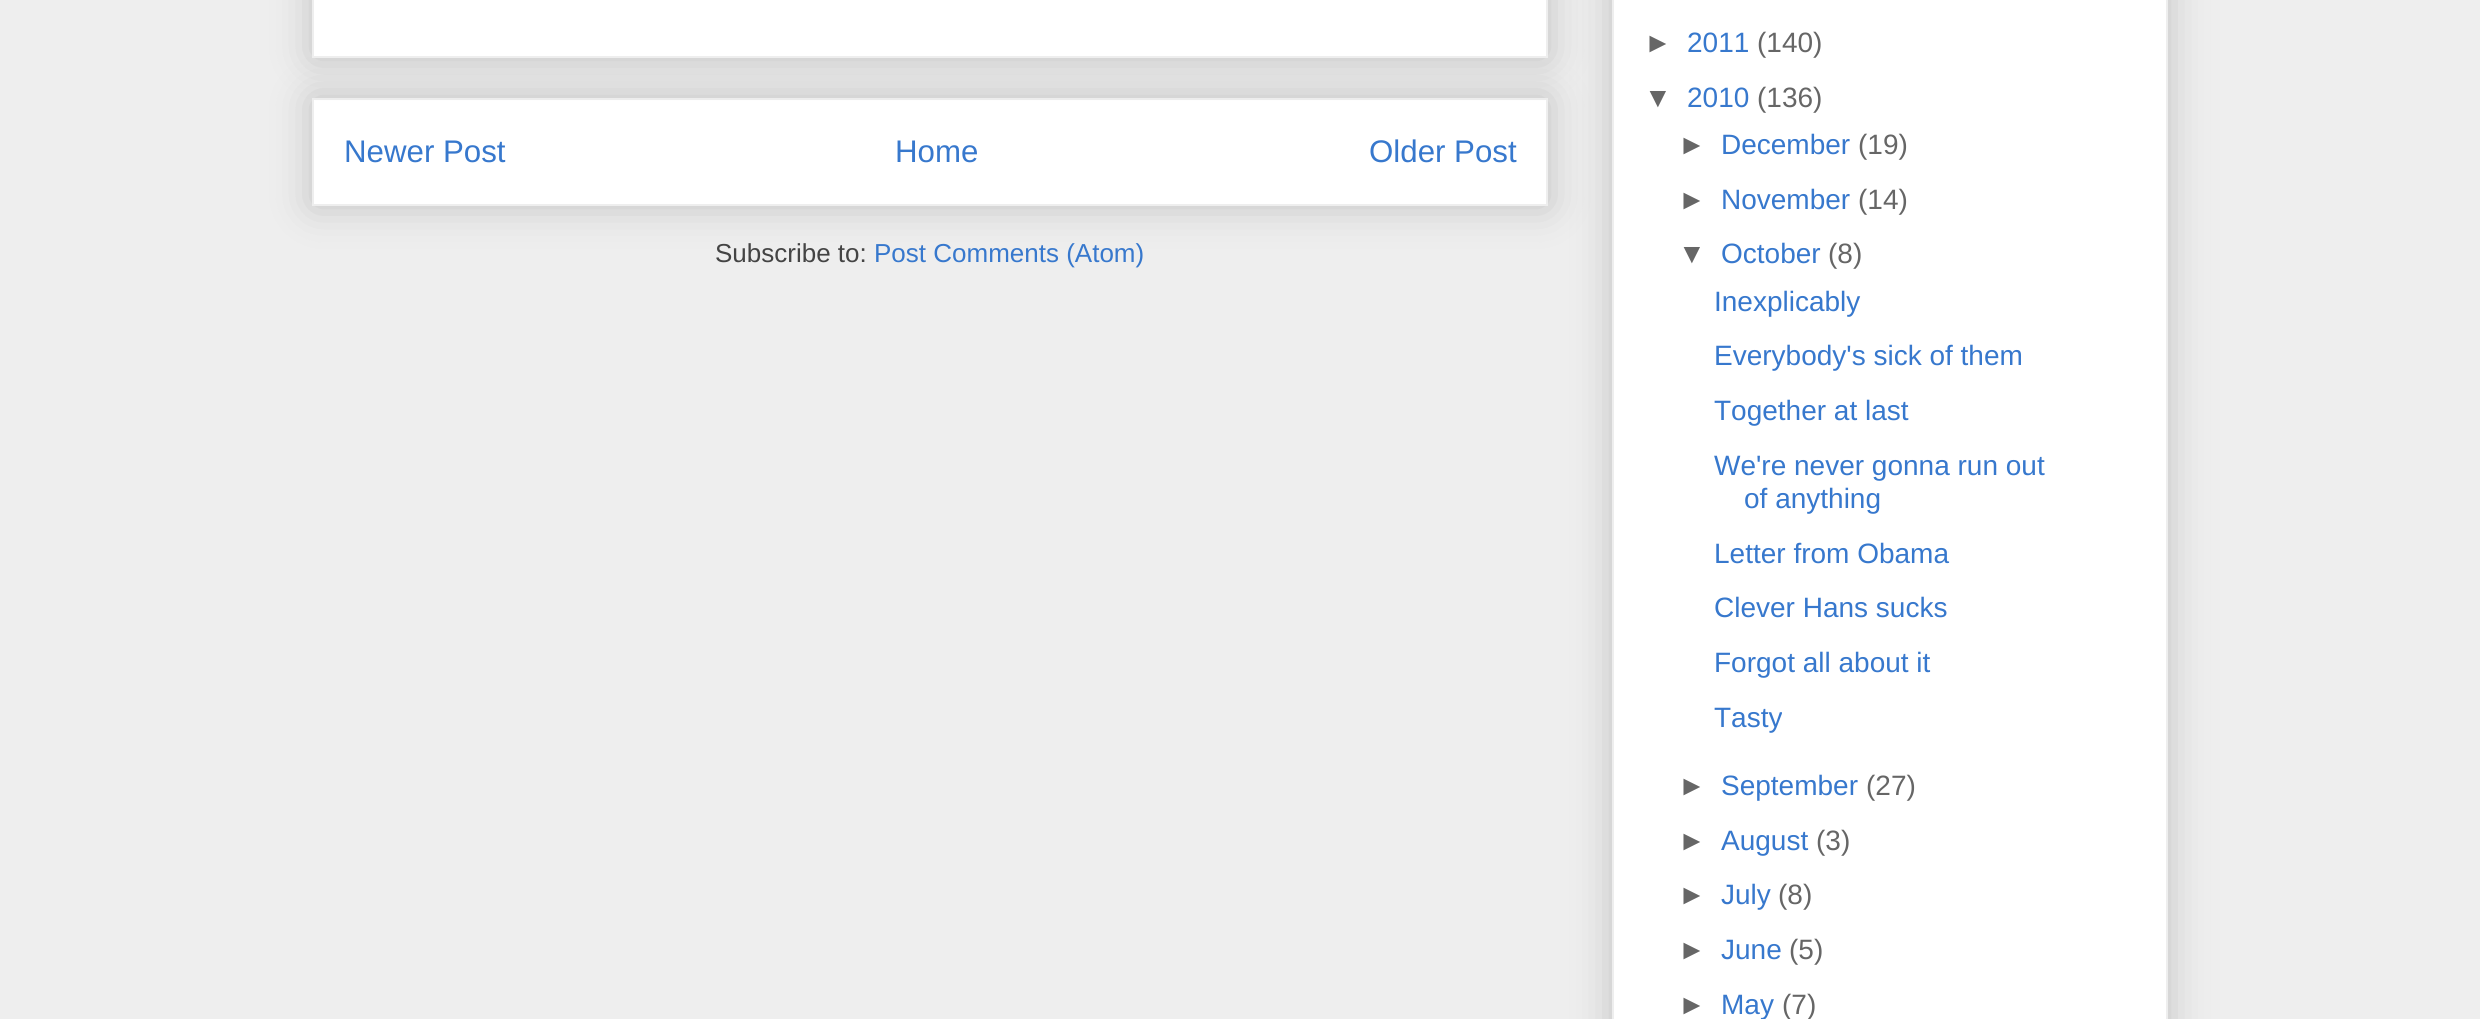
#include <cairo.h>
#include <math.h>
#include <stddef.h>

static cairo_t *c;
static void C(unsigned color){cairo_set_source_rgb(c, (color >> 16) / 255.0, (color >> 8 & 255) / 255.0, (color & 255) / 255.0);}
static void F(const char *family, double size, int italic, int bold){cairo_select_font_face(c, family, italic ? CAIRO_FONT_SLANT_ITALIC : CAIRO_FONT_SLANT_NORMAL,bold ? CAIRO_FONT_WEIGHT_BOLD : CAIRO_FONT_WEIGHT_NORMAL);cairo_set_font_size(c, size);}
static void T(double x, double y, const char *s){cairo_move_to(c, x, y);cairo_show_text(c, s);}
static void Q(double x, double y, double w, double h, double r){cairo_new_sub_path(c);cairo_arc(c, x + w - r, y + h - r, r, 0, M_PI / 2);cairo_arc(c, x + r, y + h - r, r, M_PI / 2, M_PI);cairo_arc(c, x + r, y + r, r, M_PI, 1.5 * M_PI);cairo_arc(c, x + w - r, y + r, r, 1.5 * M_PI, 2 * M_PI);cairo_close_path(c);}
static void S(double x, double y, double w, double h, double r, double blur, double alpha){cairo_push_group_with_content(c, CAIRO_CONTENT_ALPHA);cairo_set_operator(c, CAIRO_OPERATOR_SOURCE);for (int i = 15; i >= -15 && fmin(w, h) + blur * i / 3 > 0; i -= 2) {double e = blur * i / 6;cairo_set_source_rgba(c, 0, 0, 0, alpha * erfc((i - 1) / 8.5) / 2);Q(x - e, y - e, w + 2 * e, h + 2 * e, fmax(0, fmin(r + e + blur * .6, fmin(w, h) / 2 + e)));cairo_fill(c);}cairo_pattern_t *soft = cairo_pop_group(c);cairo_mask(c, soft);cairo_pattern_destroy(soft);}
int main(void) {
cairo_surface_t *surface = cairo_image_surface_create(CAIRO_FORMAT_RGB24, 2480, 1019);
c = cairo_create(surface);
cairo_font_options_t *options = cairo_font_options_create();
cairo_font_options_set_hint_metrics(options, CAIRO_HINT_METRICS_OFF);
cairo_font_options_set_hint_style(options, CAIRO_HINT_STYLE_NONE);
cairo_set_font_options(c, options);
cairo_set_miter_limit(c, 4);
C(0xeeeeee);
cairo_paint(c);
C(0x000000);
S(312,98,1236,108,0,20,.2);
C(0xffffff);
cairo_rectangle(c,313,99,1234,106);
cairo_fill_preserve(c);
C(0xeeeeee);
cairo_stroke(c);
C(0x000000);
S(312,-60,1236,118,0,20,.2);
C(0xffffff);
cairo_rectangle(c,313,-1,1234,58);
cairo_fill_preserve(c);
C(0xeeeeee);
cairo_stroke(c);
F("Liberation Sans",31.25,0,0);
C(0x3778cd);
T(344,162,"Newer Post");
T(895,162,"Home");
T(1369,162,"Older Post");
F("Liberation Sans",26,0,0);
C(0x444444);
T(715,262,"Subscribe to:");
C(0x3778cd);
T(874,262,"Post Comments (Atom)");
C(0x000000);
S(1612,-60,556,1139,0,20,.2);
C(0xffffff);
cairo_rectangle(c,1613,-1,554,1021);
cairo_fill_preserve(c);
C(0xeeeeee);
cairo_stroke(c);
F("Liberation Sans",28,0,0);
C(0x666666);
T(1644,52,"►");
C(0x3778cd);
T(1687,52,"2011");
C(0x666666);
T(1757,52,"(140)");
T(1644,107,"▼");
C(0x3778cd);
T(1687,107,"2010");
C(0x666666);
T(1757,107,"(136)");
T(1678,154,"►");
C(0x3778cd);
T(1721,154,"December");
C(0x666666);
T(1858,154,"(19)");
T(1678,209,"►");
C(0x3778cd);
T(1721,209,"November");
C(0x666666);
T(1858,209,"(14)");
T(1678,263,"▼");
C(0x3778cd);
T(1721,263,"October");
C(0x666666);
T(1828,263,"(8)");
C(0x3778cd);
T(1714,311,"Inexplicably");
T(1714,365,"Everybody's sick of them");
T(1714,420,"Together at last");
T(1714,475,"We're never gonna run out");
T(1744,508,"of anything");
T(1714,563,"Letter from Obama");
T(1714,617,"Clever Hans sucks");
T(1714,672,"Forgot all about it");
T(1714,727,"Tasty");
C(0x666666);
T(1678,795,"►");
C(0x3778cd);
T(1721,795,"September");
C(0x666666);
T(1866,795,"(27)");
T(1678,850,"►");
C(0x3778cd);
T(1721,850,"August");
C(0x666666);
T(1816,850,"(3)");
T(1678,904,"►");
C(0x3778cd);
T(1721,904,"July");
C(0x666666);
T(1778,904,"(8)");
T(1678,959,"►");
C(0x3778cd);
T(1721,959,"June");
C(0x666666);
T(1789,959,"(5)");
T(1678,1014,"►");
C(0x3778cd);
T(1721,1014,"May");
C(0x666666);
T(1782,1014,"(7)");
cairo_surface_write_to_png(surface, "o.png");
cairo_font_options_destroy(options);
cairo_destroy(c);
cairo_surface_destroy(surface);
return 0;
}
